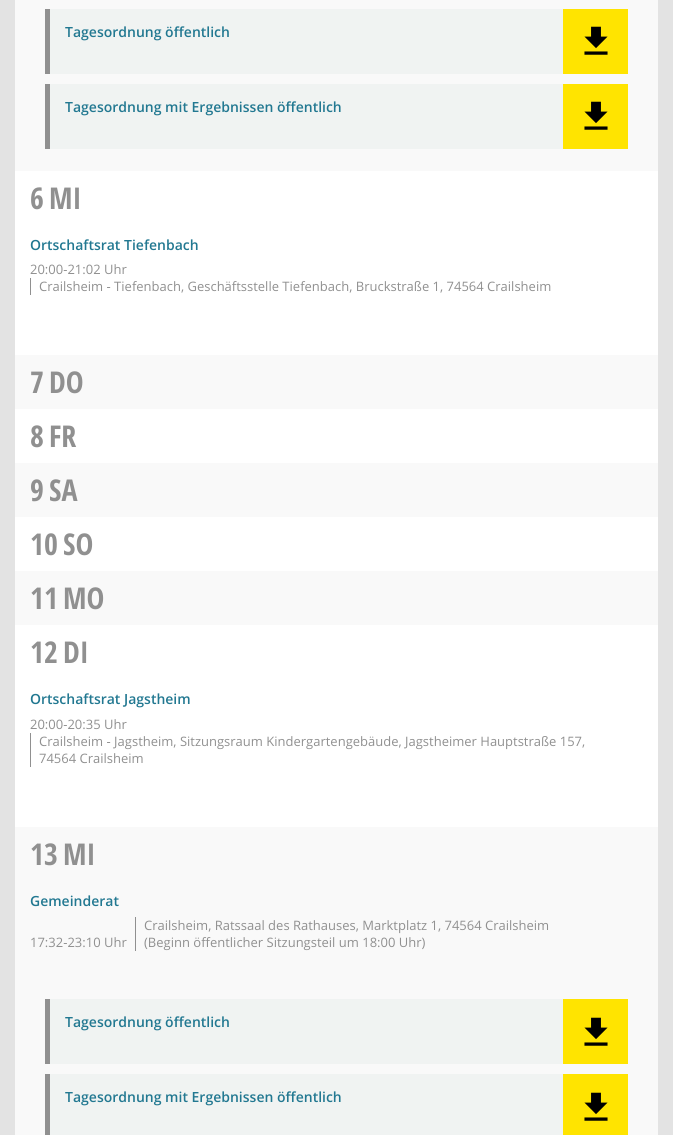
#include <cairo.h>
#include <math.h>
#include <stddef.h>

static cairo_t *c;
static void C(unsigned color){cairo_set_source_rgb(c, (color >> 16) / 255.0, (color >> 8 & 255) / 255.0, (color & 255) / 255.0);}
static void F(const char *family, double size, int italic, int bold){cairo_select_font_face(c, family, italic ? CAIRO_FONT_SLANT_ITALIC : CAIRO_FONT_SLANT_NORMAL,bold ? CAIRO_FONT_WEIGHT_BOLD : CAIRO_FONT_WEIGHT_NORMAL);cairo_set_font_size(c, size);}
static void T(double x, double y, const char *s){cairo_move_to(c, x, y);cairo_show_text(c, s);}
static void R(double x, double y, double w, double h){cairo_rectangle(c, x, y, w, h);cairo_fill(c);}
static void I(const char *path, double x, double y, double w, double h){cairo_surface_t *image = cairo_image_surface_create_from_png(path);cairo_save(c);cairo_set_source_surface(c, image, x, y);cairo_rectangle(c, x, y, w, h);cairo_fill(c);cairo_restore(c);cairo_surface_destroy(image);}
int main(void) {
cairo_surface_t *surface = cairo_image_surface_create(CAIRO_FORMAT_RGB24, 673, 1135);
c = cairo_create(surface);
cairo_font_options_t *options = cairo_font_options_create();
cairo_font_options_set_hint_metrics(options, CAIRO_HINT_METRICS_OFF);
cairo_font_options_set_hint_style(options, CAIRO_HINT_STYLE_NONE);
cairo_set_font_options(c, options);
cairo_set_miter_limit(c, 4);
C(0xe3e3e3);
cairo_paint(c);
C(0xffffff);
R(15,171,643,656);
C(0xf9f9f9);
R(15,0,643,171);
C(0xf0f3f2);
R(50,9,513,65);
C(0x909090);
R(45,9,5,65);
F("Open Sans SemiBold",14,0,0);
C(0x227891);
T(65,37,"Tagesordnung öffentlich");
C(0xffe400);
R(563,9,65,65);
I("1.png",584,26,24,29);
C(0xf0f3f2);
R(50,84,513,65);
C(0x909090);
R(45,84,5,65);
C(0x227891);
T(65,112,"Tagesordnung mit Ergebnissen öffentlich");
C(0xffe400);
R(563,84,65,65);
I("1.png",584,101,24,29);
F("Open Sans Condensed",30,0,1);
C(0x909090);
T(30,209,"6");
T(49,209,"MI");
F("Open Sans SemiBold",14,0,0);
C(0x227891);
T(30,250,"Ortschaftsrat Tiefenbach");
F("Open Sans",13,0,0);
C(0x909090);
T(30,274,"20:00-21:02 Uhr");
R(30,278,1,17);
T(39,291,"Crailsheim - Tiefenbach, Geschäftsstelle Tiefenbach, Bruckstraße 1, 74564 Crailsheim");
C(0xf9f9f9);
R(15,355,643,54);
F("Open Sans Condensed",30,0,1);
C(0x909090);
T(30,393,"7");
T(49,393,"DO");
T(30,447,"8");
T(49,447,"FR");
C(0xf9f9f9);
R(15,463,643,54);
C(0x909090);
T(30,501,"9");
T(49,501,"SA");
T(30,555,"10");
T(63,555,"SO");
C(0xf9f9f9);
R(15,571,643,54);
C(0x909090);
T(30,609,"11");
T(63,609,"MO");
T(30,663,"12");
T(63,663,"DI");
F("Open Sans SemiBold",14,0,0);
C(0x227891);
T(30,704,"Ortschaftsrat Jagstheim");
F("Open Sans",13,0,0);
C(0x909090);
T(30,729,"20:00-20:35 Uhr");
R(30,733,1,34);
T(39,746,"Crailsheim - Jagstheim, Sitzungsraum Kindergartengebäude, Jagstheimer Hauptstraße 157,");
T(39,763,"74564 Crailsheim");
C(0xf9f9f9);
R(15,827,643,308);
F("Open Sans Condensed",30,0,1);
C(0x909090);
T(30,865,"13");
T(63,865,"MI");
F("Open Sans SemiBold",14,0,0);
C(0x227891);
T(30,906,"Gemeinderat");
F("Open Sans",13,0,0);
C(0x909090);
T(30,947,"17:32-23:10 Uhr");
R(135,917,1,34);
T(144,930,"Crailsheim, Ratssaal des Rathauses, Marktplatz 1, 74564 Crailsheim");
T(144,947,"(Beginn öffentlicher Sitzungsteil um 18:00 Uhr)");
C(0xf0f3f2);
R(50,999,513,65);
C(0x909090);
R(45,999,5,65);
F("Open Sans SemiBold",14,0,0);
C(0x227891);
T(65,1027,"Tagesordnung öffentlich");
C(0xffe400);
R(563,999,65,65);
I("1.png",584,1017,24,29);
C(0xf0f3f2);
R(50,1074,513,61);
C(0x909090);
R(45,1074,5,61);
C(0x227891);
T(65,1102,"Tagesordnung mit Ergebnissen öffentlich");
C(0xffe400);
R(563,1074,65,61);
I("1.png",584,1092,24,29);
cairo_surface_write_to_png(surface, "o.png");
cairo_font_options_destroy(options);
cairo_destroy(c);
cairo_surface_destroy(surface);
return 0;
}
